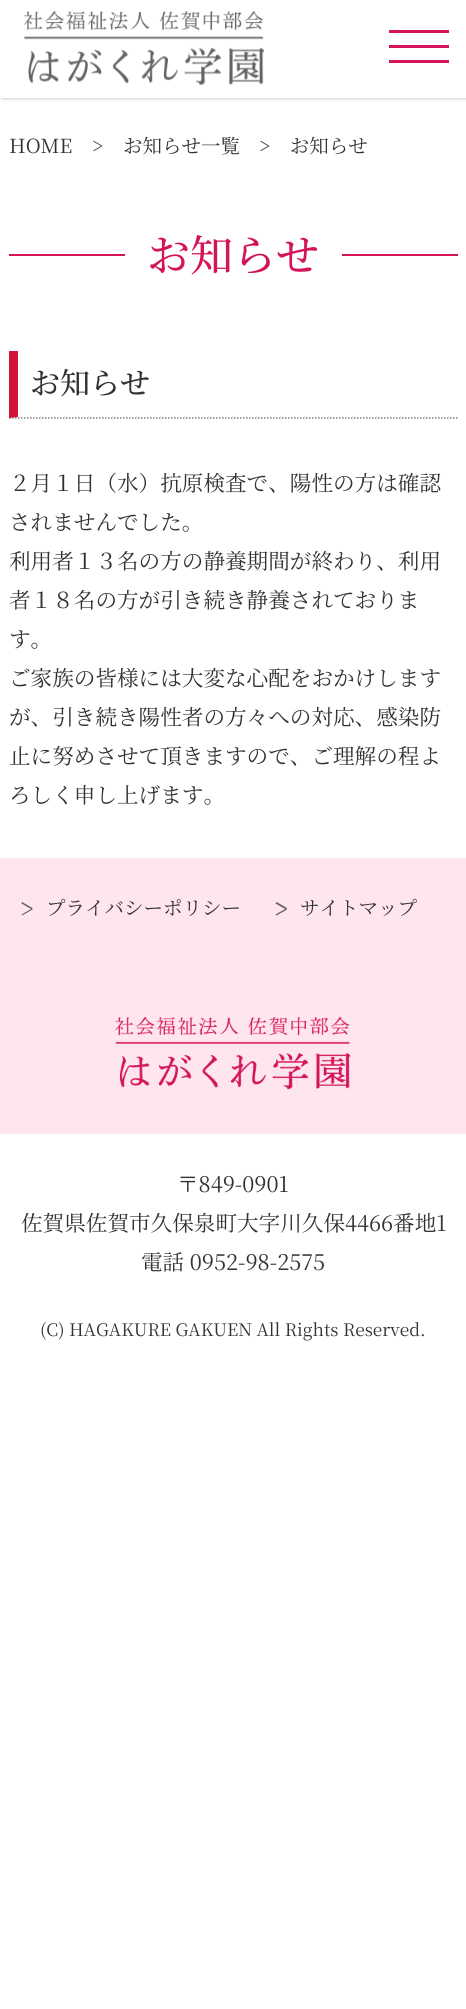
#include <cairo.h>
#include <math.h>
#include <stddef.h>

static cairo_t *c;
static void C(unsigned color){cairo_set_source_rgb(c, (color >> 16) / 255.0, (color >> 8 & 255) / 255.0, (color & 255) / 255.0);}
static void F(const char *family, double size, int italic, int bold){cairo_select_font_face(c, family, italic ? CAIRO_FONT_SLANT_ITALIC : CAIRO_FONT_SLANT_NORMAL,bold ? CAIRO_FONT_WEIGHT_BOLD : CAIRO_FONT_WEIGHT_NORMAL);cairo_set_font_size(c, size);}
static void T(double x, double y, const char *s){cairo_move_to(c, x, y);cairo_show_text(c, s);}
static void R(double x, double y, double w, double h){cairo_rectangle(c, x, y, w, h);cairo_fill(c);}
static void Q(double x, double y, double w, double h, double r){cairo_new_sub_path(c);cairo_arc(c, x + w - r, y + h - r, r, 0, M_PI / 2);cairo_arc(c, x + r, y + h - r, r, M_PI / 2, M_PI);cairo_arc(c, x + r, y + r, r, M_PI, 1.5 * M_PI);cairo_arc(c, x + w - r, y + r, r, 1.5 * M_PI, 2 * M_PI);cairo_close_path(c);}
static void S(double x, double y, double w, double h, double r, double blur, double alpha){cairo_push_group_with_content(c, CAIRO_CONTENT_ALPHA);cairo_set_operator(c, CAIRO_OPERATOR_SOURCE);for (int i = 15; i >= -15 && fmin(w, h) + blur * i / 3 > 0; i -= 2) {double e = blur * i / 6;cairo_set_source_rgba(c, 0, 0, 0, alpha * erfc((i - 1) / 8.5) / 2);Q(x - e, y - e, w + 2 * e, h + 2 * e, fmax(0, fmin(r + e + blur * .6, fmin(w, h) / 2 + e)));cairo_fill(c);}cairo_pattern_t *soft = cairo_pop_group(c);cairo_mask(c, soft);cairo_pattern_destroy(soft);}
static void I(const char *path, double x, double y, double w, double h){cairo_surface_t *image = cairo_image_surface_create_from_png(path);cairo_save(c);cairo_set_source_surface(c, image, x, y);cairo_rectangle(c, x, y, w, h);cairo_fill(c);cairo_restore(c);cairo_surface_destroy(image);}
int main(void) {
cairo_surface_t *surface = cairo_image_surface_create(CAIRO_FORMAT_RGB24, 466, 2009);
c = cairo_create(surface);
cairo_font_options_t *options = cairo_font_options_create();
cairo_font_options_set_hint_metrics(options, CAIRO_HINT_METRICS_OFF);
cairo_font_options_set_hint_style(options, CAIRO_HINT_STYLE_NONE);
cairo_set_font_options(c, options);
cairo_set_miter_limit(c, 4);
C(0xffffff);
cairo_paint(c);
C(0xcccccc);
S(2,2,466,97,0,1.5,1);
C(0xffffff);
R(0,0,466,98);
I("1.png",24,11,240,74);
C(0xd4145a);
R(389,30,60,3);
R(389,45,60,3);
R(389,60,60,3);
F("Noto Serif JP",19.5,0,0);
C(0x323232);
T(9,153,"HOME");
T(92,153,">");
T(123,153,"お知らせ一覧");
T(259,153,">　お知らせ");
C(0xd4145a);
R(9,254,449,2);
C(0xffffff);
R(125,254,217,2);
F("Noto Serif JP Medium",43,0,0);
C(0xd4145a);
T(147,271,"お知らせ");
cairo_new_path(c);
cairo_move_to(c,9,418);
cairo_line_to(c,457.5,418);
C(0x808080);
cairo_set_line_width(c,1.5);
cairo_set_dash(c,(double[]){1.5,1.5},2,0);
cairo_stroke(c);
C(0xd4133a);
cairo_new_path(c);
cairo_move_to(c,9,418);
cairo_line_to(c,9,351);
cairo_line_to(c,18,351);
cairo_line_to(c,18,417);
cairo_close_path(c);
cairo_fill(c);
F("Noto Serif JP Medium",30,0,0);
C(0x323232);
T(30,394,"お知らせ");
F("Noto Serif JP",21.6,0,0);
T(9,491,"２月１日（水）抗原検査で、陽性の方は確認");
T(9,530,"されませんでした。");
T(9,569,"利用者１３名の方の静養期間が終わり、利用");
T(9,608,"者１８名の方が引き続き静養されておりま");
T(9,647,"す。");
T(9,686,"ご家族の皆様には大変な心配をおかけします");
T(9,725,"が、引き続き陽性者の方々への対応、感染防");
T(9,764,"止に努めさせて頂きますので、ご理解の程よ");
T(9,803,"ろしく申し上げます。");
C(0xffe5ee);
R(0,858,466,276);
C(0x646464);
cairo_new_path(c);
cairo_move_to(c,22,902);
cairo_line_to(c,32.5,908);
cairo_line_to(c,32,909.5);
cairo_line_to(c,21.5,903.5);
cairo_close_path(c);
cairo_fill(c);
F("Noto Serif JP",19.5,0,0);
C(0x323232);
T(46,915,"プライバシーポリシー");
C(0x646464);
cairo_new_path(c);
cairo_move_to(c,21.5,914.5);
cairo_line_to(c,32,908.5);
cairo_line_to(c,32.5,909.5);
cairo_line_to(c,22,915.5);
cairo_close_path(c);
cairo_fill(c);
cairo_new_path(c);
cairo_move_to(c,276.5,902);
cairo_line_to(c,287,908);
cairo_line_to(c,286,909.5);
cairo_line_to(c,275.5,903.5);
cairo_close_path(c);
cairo_fill(c);
C(0x323232);
T(300,915,"サイトマップ");
C(0x646464);
cairo_new_path(c);
cairo_move_to(c,275.5,914.5);
cairo_line_to(c,286,908.5);
cairo_line_to(c,287,909.5);
cairo_line_to(c,276.5,915.5);
cairo_close_path(c);
cairo_fill(c);
I("2.png",115,1017,236,72);
F("Noto Serif JP",21.6,0,0);
C(0x323232);
T(177,1192,"〒849-0901");
T(21,1231,"佐賀県佐賀市久保泉町大字川久保4466番地1");
T(141,1270,"電話 0952-98-2575");
F("Noto Serif JP",17.25,0,0);
T(40,1336,"(C) HAGAKURE GAKUEN All Rights Reserved.");
cairo_surface_write_to_png(surface, "o.png");
cairo_font_options_destroy(options);
cairo_destroy(c);
cairo_surface_destroy(surface);
return 0;
}
